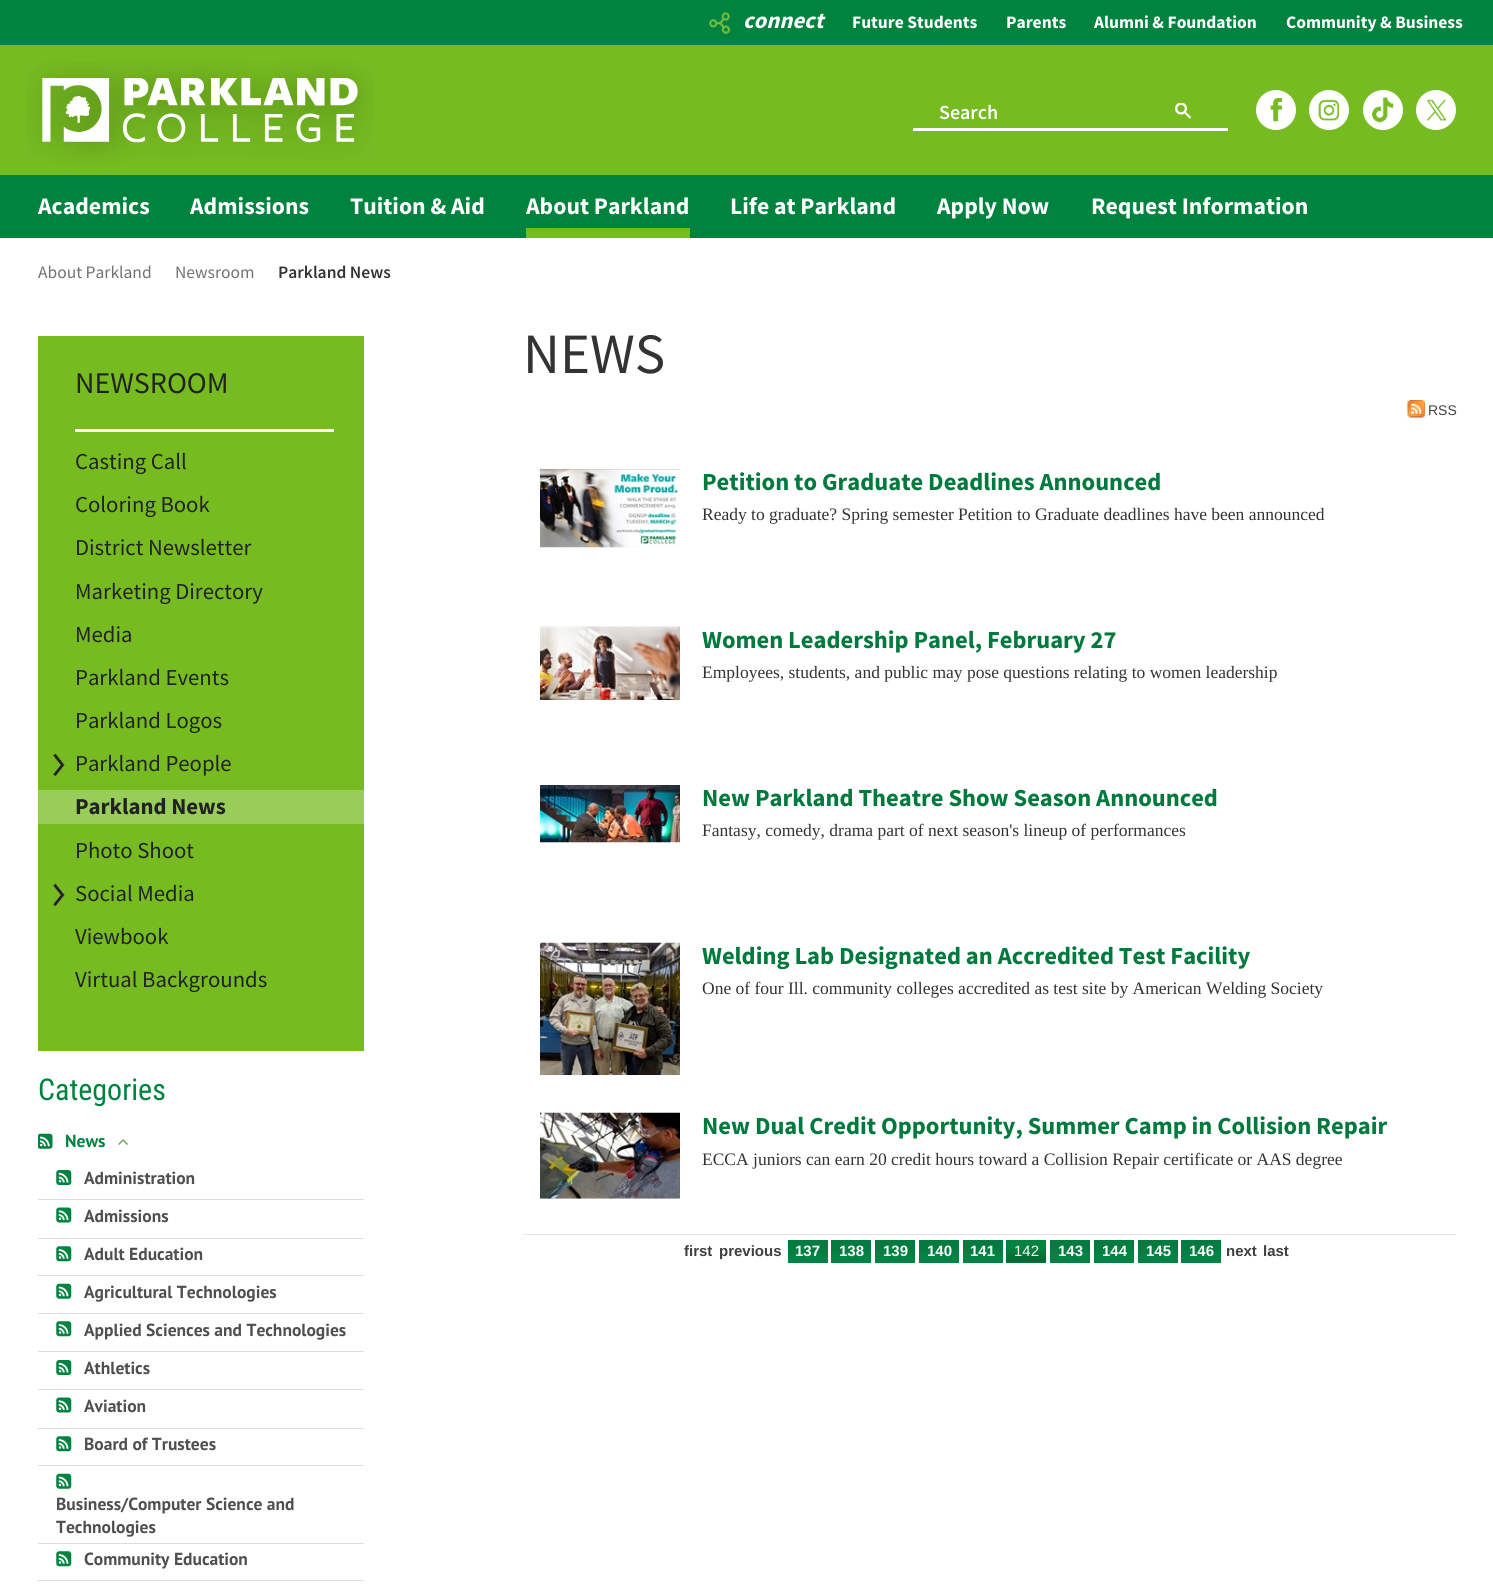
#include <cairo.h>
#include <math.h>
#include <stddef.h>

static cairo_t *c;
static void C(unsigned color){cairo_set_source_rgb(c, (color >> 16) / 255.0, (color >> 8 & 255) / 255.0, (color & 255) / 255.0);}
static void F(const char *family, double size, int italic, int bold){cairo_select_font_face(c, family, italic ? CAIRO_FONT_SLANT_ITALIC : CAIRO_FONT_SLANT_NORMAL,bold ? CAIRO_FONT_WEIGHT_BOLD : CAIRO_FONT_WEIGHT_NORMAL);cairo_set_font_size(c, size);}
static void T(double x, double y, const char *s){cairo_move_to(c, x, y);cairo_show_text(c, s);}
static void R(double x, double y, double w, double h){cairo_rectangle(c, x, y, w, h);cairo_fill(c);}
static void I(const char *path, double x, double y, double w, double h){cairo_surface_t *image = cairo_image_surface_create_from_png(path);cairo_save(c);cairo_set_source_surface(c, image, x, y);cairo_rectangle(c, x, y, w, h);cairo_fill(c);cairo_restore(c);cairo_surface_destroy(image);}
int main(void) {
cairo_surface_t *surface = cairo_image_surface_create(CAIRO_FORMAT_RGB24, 1493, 1587);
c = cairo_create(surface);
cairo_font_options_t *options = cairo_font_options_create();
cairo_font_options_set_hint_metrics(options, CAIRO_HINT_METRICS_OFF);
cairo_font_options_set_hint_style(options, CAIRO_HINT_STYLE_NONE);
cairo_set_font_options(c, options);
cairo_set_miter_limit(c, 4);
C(0xffffff);
cairo_paint(c);
C(0x00833e);
R(0,0,1493,45);
I("1.png",709,12,22,23);
F("Source Sans Pro",22.75,1,1);
C(0xffffff);
T(743,28,"connect");
F("Source Sans Pro",17.5,0,1);
T(852,28,"Future Students");
T(1006,28,"Parents");
T(1094,28,"Alumni & Foundation");
T(1286,28,"Community & Business");
C(0x76bc21);
R(0,45,1493,130);
I("2.png",26,61,348,103);
C(0xffffff);
R(913,128,315,3);
F("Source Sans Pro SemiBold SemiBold",20,0,0);
T(939,119,"Search");
I("3.png",1175,103,16,16);
cairo_arc(c,1276,110,20,0,2 * M_PI);
cairo_fill(c);
I("4.png",1270,98,12,24);
cairo_arc(c,1329,110,20,0,2 * M_PI);
cairo_fill(c);
I("5.png",1318,99,22,22);
cairo_arc(c,1383,110,20,0,2 * M_PI);
cairo_fill(c);
I("6.png",1372,97,22,26);
cairo_arc(c,1436,110,20,0,2 * M_PI);
cairo_fill(c);
I("7.png",1426,99,21,22);
C(0x00833e);
R(0,175,1493,63);
F("Source Sans Pro",23.75,0,1);
C(0xffffff);
T(38,214,"Academics");
T(190,214,"Admissions");
T(350,214,"Tuition & Aid");
C(0x76bc21);
R(526,228,164,10);
C(0xffffff);
T(526,214,"About Parkland");
T(730,214,"Life at Parkland");
T(937,214,"Apply Now");
T(1091,214,"Request Information");
F("Source Sans Pro",17.5,0,0);
C(0x727272);
T(38,278,"About Parkland");
T(175,278,"Newsroom");
F("Source Sans Pro SemiBold SemiBold",17.5,0,0);
C(0x333333);
T(278,278,"Parkland News");
C(0x76bc21);
R(38,336,326,715);
C(0xffffff);
R(75,429,259,3);
F("Source Sans Pro",30,0,0);
C(0x222222);
T(75,393,"NEWSROOM");
F("Source Sans Pro",22.75,0,0);
T(75,469,"Casting Call");
T(75,512,"Coloring Book");
T(75,555,"District Newsletter");
T(75,599,"Marketing Directory");
T(75,642,"Media");
T(75,685,"Parkland Events");
T(75,728,"Parkland Logos");
I("8.png",53,753,12,24);
T(75,771,"Parkland People");
C(0x98cd59);
R(38,790,326,34);
F("Source Sans Pro",22.75,0,1);
C(0x222222);
T(75,814,"Parkland News");
F("Source Sans Pro",22.75,0,0);
T(75,858,"Photo Shoot");
I("8.png",53,883,12,24);
T(75,901,"Social Media");
T(75,944,"Viewbook");
T(75,987,"Virtual Backgrounds");
F("Source Sans Pro",57,0,0);
C(0x333333);
T(523,373,"NEWS");
I("9.png",1407,400,18,18);
F("Liberation Sans",14,0,0);
C(0x444444);
T(1428,415,"RSS");
I("10.png",540,468,140,80);
F("Source Sans Pro",24.5,0,1);
C(0x00793d);
T(702,490,"Petition to Graduate Deadlines Announced");
F("Liberation Serif",17.5,0,0);
C(0x333333);
T(702,520,"Ready to graduate? Spring semester Petition to Graduate deadlines have been announced");
I("11.png",540,626,140,74);
F("Source Sans Pro",24.5,0,1);
C(0x00793d);
T(702,648,"Women Leadership Panel, February 27");
F("Liberation Serif",17.5,0,0);
C(0x333333);
T(702,678,"Employees, students, and public may pose questions relating to women leadership");
I("12.png",540,785,140,58);
F("Source Sans Pro",24.5,0,1);
C(0x00793d);
T(702,806,"New Parkland Theatre Show Season Announced");
F("Liberation Serif",17.5,0,0);
C(0x333333);
T(702,836,"Fantasy, comedy, drama part of next season's lineup of performances");
I("13.png",540,942,140,133);
F("Source Sans Pro",24.5,0,1);
C(0x00793d);
T(702,964,"Welding Lab Designated an Accredited Test Facility");
F("Liberation Serif",17.5,0,0);
C(0x333333);
T(702,994,"One of four Ill. community colleges accredited as test site by American Welding Society");
I("14.png",540,1112,140,87);
F("Source Sans Pro",24.5,0,1);
C(0x00793d);
T(702,1134,"New Dual Credit Opportunity, Summer Camp in Collision Repair");
F("Liberation Serif",17.5,0,0);
C(0x333333);
T(702,1165,"ECCA juniors can earn 20 credit hours toward a Collision Repair certificate or AAS degree");
C(0xe4e4e4);
R(523,1234,933,1);
F("Liberation Sans",15,0,1);
C(0x3e3e3e);
T(684,1256,"first");
T(719,1256,"previous");
C(0x038343);
R(788,1240,40,23);
I("15.png",787,1240,41,13);
C(0xffffff);
T(795,1256,"137");
C(0x038343);
R(831,1240,40,23);
I("16.png",831,1240,40,13);
C(0xffffff);
T(839,1256,"138");
C(0x038343);
R(875,1240,40,23);
I("17.png",875,1240,40,13);
C(0xffffff);
T(883,1256,"139");
C(0x038343);
R(919,1240,40,23);
I("18.png",919,1240,40,13);
C(0xffffff);
T(927,1256,"140");
C(0x038343);
R(963,1240,40,23);
I("15.png",962,1240,41,13);
C(0xffffff);
T(970,1256,"141");
C(0x00833e);
R(1006,1240,40,23);
I("19.png",1006,1249,41,14);
F("Liberation Sans",15,0,0);
C(0xffffff);
T(1014,1256,"142");
C(0x038343);
R(1050,1240,40,23);
I("17.png",1050,1240,40,13);
F("Liberation Sans",15,0,1);
C(0xffffff);
T(1058,1256,"143");
C(0x038343);
R(1094,1240,40,23);
I("18.png",1094,1240,40,13);
C(0xffffff);
T(1102,1256,"144");
C(0x038343);
R(1138,1240,40,23);
I("15.png",1137,1240,41,13);
C(0xffffff);
T(1146,1256,"145");
C(0x038343);
R(1181,1240,40,23);
I("16.png",1181,1240,40,13);
C(0xffffff);
T(1189,1256,"146");
C(0x3e3e3e);
T(1226,1256,"next");
T(1263,1256,"last");
F("Roboto Condensed",30,0,0);
C(0x00833e);
T(38,1100,"Categories");
I("20.png",38,1133,15,16);
F("PT Sans",17.5,0,1);
T(65,1147,"News");
I("21.png",118,1139,10,6);
C(0xdddddd);
R(38,1199,326,1);
I("22.png",56,1170,16,15);
C(0x504e4e);
T(84,1184,"Administration");
C(0xdddddd);
R(38,1238,326,1);
I("23.png",56,1207,16,16);
C(0x504e4e);
T(84,1222,"Admissions");
C(0xdddddd);
R(38,1275,326,1);
I("24.png",56,1246,16,16);
C(0x504e4e);
T(84,1260,"Adult Education");
C(0xdddddd);
R(38,1313,326,1);
I("25.png",56,1283,16,16);
C(0x504e4e);
T(84,1298,"Agricultural Technologies");
C(0xdddddd);
R(38,1351,326,1);
I("24.png",56,1321,16,16);
C(0x504e4e);
T(84,1336,"Applied Sciences and Technologies");
C(0xdddddd);
R(38,1389,326,1);
I("22.png",56,1360,16,15);
C(0x504e4e);
T(84,1374,"Athletics");
C(0xdddddd);
R(38,1428,326,1);
I("23.png",56,1397,16,16);
C(0x504e4e);
T(84,1412,"Aviation");
C(0xdddddd);
R(38,1465,326,1);
I("24.png",56,1436,16,16);
C(0x504e4e);
T(84,1450,"Board of Trustees");
C(0xdddddd);
R(38,1543,326,1);
I("25.png",56,1473,16,16);
C(0x504e4e);
T(56,1510,"Business/Computer Science and");
T(56,1533,"Technologies");
C(0xdddddd);
R(38,1580,326,1);
I("24.png",56,1551,16,16);
C(0x504e4e);
T(84,1565,"Community Education");
cairo_surface_write_to_png(surface, "o.png");
cairo_font_options_destroy(options);
cairo_destroy(c);
cairo_surface_destroy(surface);
return 0;
}
